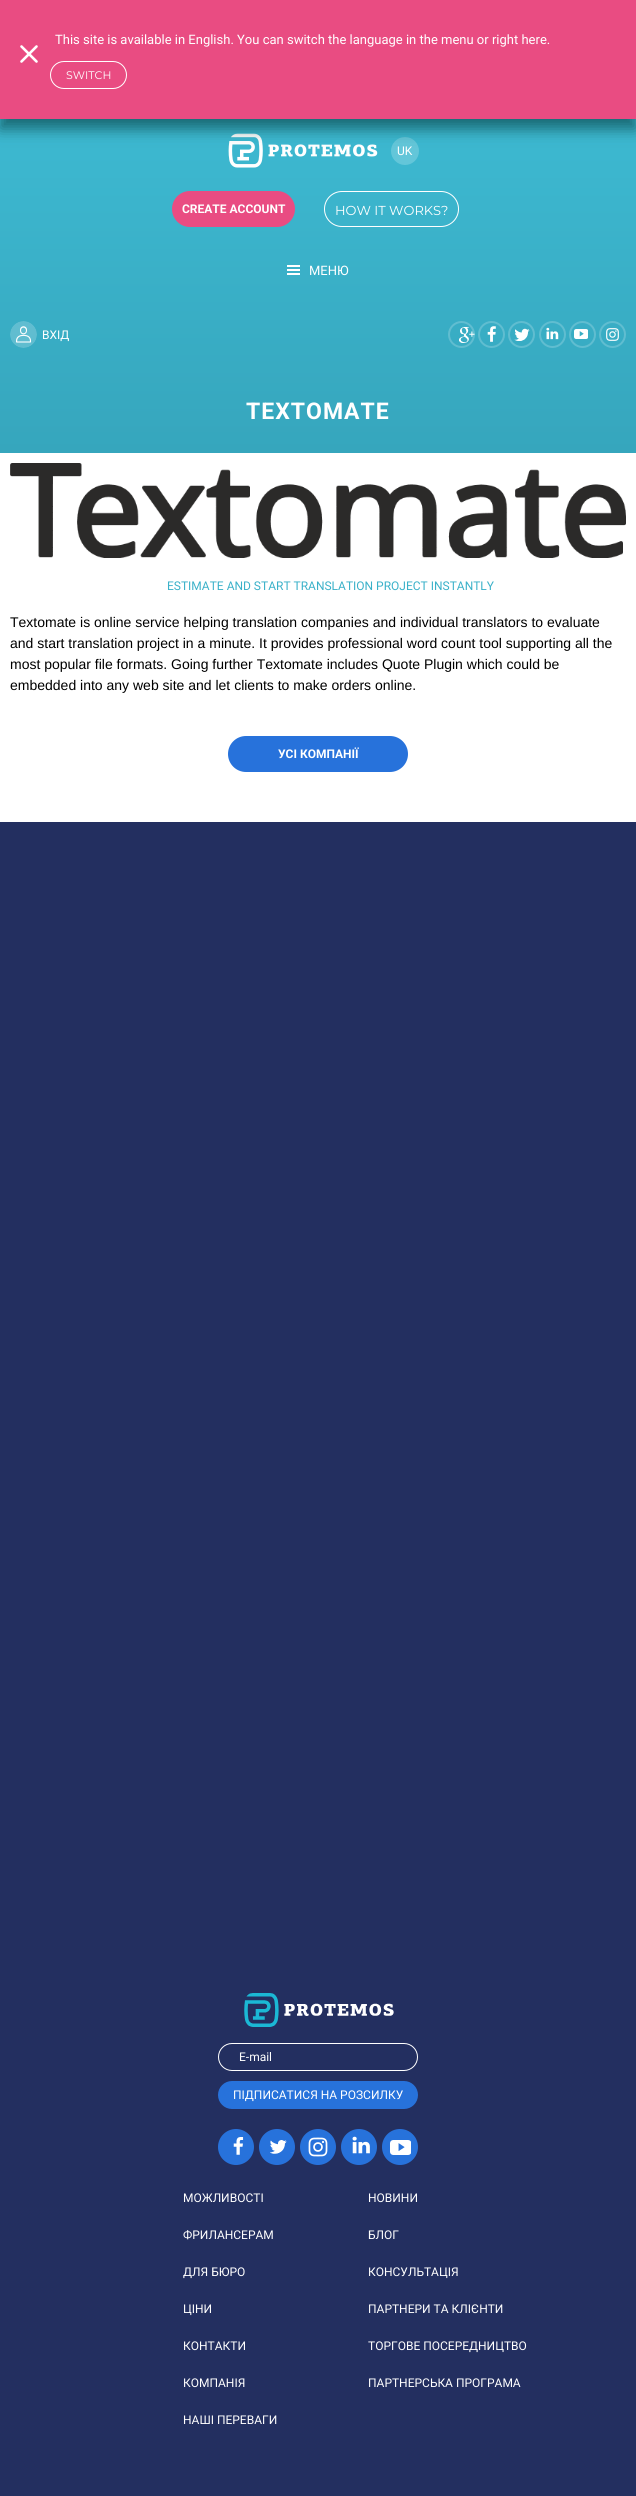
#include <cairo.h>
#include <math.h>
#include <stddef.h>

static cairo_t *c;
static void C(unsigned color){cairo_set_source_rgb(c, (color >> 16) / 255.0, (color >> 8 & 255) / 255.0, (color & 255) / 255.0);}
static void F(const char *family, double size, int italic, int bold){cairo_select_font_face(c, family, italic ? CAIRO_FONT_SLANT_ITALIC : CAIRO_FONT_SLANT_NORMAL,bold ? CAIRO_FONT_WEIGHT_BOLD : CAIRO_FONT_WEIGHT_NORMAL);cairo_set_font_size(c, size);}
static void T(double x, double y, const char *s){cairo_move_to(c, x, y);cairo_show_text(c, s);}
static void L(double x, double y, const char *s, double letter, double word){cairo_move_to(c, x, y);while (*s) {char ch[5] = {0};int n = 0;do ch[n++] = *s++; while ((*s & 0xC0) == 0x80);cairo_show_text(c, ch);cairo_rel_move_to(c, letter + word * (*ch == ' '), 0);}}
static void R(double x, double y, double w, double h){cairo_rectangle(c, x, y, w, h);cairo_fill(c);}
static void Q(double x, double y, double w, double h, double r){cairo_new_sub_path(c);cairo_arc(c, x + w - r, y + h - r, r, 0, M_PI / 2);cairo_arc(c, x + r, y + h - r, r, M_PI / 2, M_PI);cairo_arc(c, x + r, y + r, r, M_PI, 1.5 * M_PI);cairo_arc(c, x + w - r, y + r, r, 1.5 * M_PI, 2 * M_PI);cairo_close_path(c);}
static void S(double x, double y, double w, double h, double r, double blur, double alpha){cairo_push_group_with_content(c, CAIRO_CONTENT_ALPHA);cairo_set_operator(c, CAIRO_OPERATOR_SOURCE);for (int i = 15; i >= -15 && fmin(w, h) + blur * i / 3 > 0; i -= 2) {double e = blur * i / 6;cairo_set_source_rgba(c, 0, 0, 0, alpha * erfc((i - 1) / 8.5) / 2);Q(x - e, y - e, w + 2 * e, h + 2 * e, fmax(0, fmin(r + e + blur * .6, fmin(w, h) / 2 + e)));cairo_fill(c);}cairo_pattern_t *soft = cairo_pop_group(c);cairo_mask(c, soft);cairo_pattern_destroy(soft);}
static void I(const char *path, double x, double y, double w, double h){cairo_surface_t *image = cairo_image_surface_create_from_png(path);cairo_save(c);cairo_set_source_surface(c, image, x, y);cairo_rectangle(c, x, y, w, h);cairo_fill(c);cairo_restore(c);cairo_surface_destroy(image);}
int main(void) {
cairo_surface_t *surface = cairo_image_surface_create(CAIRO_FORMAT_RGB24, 636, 2496);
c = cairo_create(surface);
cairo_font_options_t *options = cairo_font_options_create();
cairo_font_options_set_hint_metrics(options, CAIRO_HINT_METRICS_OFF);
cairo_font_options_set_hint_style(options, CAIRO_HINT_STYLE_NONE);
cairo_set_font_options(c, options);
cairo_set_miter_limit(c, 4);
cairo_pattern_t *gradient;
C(0x232f60);
cairo_paint(c);
gradient = cairo_pattern_create_linear(318,118,318,453);
cairo_pattern_add_color_stop_rgba(gradient,0,0.239,0.725,0.82,1);
cairo_pattern_add_color_stop_rgba(gradient,1,0.212,0.651,0.741,1);
cairo_set_source(c,gradient);
cairo_pattern_destroy(gradient);
R(0,119,636,334);
I("7.png",228,133,150,35);
C(0x63c6d9);
cairo_arc(c,405,151,14,0,2 * M_PI);
cairo_fill(c);
C(0x003333);
S(0,10,636,119,0,7.5,.6);
C(0xe94c82);
R(0,0,636,119);
F("Roboto",13,0,0);
C(0xffffff);
T(55,44,"This site is available in English. You can switch the language in the menu or right here.");
cairo_new_path(c);
cairo_move_to(c,21.5,46.5);
cairo_line_to(c,36.5,61.5);
cairo_move_to(c,36.5,46.5);
cairo_line_to(c,21.5,61.5);
cairo_set_line_width(c,2.6);
cairo_set_line_cap(c,CAIRO_LINE_CAP_ROUND);
cairo_set_line_join(c,CAIRO_LINE_JOIN_ROUND);
cairo_stroke(c);
Q(50.5,61.5,76,27,13.5);
cairo_set_line_width(c,1);
cairo_set_line_cap(c,CAIRO_LINE_CAP_BUTT);
cairo_set_line_join(c,CAIRO_LINE_JOIN_MITER);
cairo_stroke(c);
F("Montserrat",11,0,0);
T(66,79,"SWITCH");
I("1.png",244,1993,150,34);
Q(218.5,2043.5,199,27,13.5);
cairo_stroke(c);
F("Roboto",12,0,0);
T(239,2061,"E-mail");
C(0x2772db);
Q(218,2081,200,28,14);
cairo_fill(c);
C(0xffffff);
T(233,2099,"ПІДПИСАТИСЯ НА РОЗСИЛКУ");
C(0x2772db);
cairo_new_path(c);
cairo_arc(c,236,2147,18,0,2 * M_PI);
cairo_fill(c);
I("2.png",233,2137,11,18);
cairo_arc(c,277,2147,18,0,2 * M_PI);
cairo_fill(c);
I("3.png",270,2140,17,14);
cairo_arc(c,318,2147,18,0,2 * M_PI);
cairo_fill(c);
I("4.png",308,2137,20,20);
cairo_arc(c,359,2147,18,0,2 * M_PI);
cairo_fill(c);
I("5.png",352,2136,18,18);
cairo_arc(c,400,2147,18,0,2 * M_PI);
cairo_fill(c);
I("6.png",390,2140,21,15);
C(0xffffff);
T(183,2202,"МОЖЛИВОСТІ");
T(368,2202,"НОВИНИ");
T(183,2239,"ФРИЛАНСЕРАМ");
T(368,2239,"БЛОГ");
T(183,2276,"ДЛЯ БЮРО");
T(368,2276,"КОНСУЛЬТАЦІЯ");
T(183,2313,"ЦІНИ");
T(368,2313,"ПАРТНЕРИ ТА КЛІЄНТИ");
T(183,2350,"КОНТАКТИ");
T(368,2350,"ТОРГОВЕ ПОСЕРЕДНИЦТВО");
T(183,2387,"КОМПАНIЯ");
T(368,2387,"ПАРТНЕРСЬКА ПРОГРАМА");
T(183,2424,"НАШІ ПЕРЕВАГИ");
T(397,155,"UK");
C(0xe94c82);
Q(172,191,123,36,18);
cairo_fill(c);
F("Roboto",12,0,1);
C(0xffffff);
T(182,213,"CREATE ACCOUNT");
Q(324.5,191.5,134,35,17.5);
cairo_stroke(c);
F("Montserrat",13,0,0);
T(335,215,"HOW IT WORKS?");
R(287,265,13,2);
R(287,269,13,2);
R(287,273,13,2);
F("Roboto",13,0,0);
T(309,275,"МЕНЮ");
I("8.png",10,321,27,27);
F("Roboto",12,0,0);
T(42,339,"ВХIД");
I("9.png",459,327,16,16);
cairo_arc(c,461.5,334.5,12.5,0,2 * M_PI);
cairo_set_source_rgba(c,1,1,1,0.2);
cairo_set_line_width(c,2);
cairo_stroke(c);
I("10.png",487,326,9,16);
cairo_arc(c,491.5,334.5,12.5,0,2 * M_PI);
C(0x60bdd0);
cairo_stroke(c);
I("11.png",514,328,16,13);
cairo_arc(c,521.5,334.5,12.5,0,2 * M_PI);
cairo_stroke(c);
I("12.png",546,327,13,13);
cairo_arc(c,552.5,334.5,12.5,0,2 * M_PI);
cairo_stroke(c);
I("13.png",574,329,14,10);
cairo_arc(c,582.5,334.5,12.5,0,2 * M_PI);
cairo_stroke(c);
I("14.png",606,328,13,13);
cairo_arc(c,612.5,334.5,12.5,0,2 * M_PI);
cairo_stroke(c);
F("Roboto",23,0,1);
C(0xffffff);
L(246,419,"TEXTOMATE",1,0);
R(0,453,636,369);
I("15.png",10,463,616,95);
F("Roboto",12,0,0);
C(0x3ab1c9);
T(167,590,"ESTIMATE AND START TRANSLATION PROJECT INSTANTLY");
F("Liberation Sans",14,0,0);
C(0x000000);
T(10,627,"Textomate is online service helping translation companies and individual translators to evaluate");
T(10,648,"and start translation project in a minute. It provides professional word count tool supporting all the");
T(10,669,"most popular file formats. Going further Textomate includes Quote Plugin which could be");
T(10,690,"embedded into any web site and let clients to make orders online.");
C(0x2772db);
Q(228,736,180,36,18);
cairo_fill(c);
F("Roboto",12,0,1);
C(0xffffff);
T(278,758,"УСІ КОМПАНІЇ");
cairo_surface_write_to_png(surface, "o.png");
cairo_font_options_destroy(options);
cairo_destroy(c);
cairo_surface_destroy(surface);
return 0;
}
